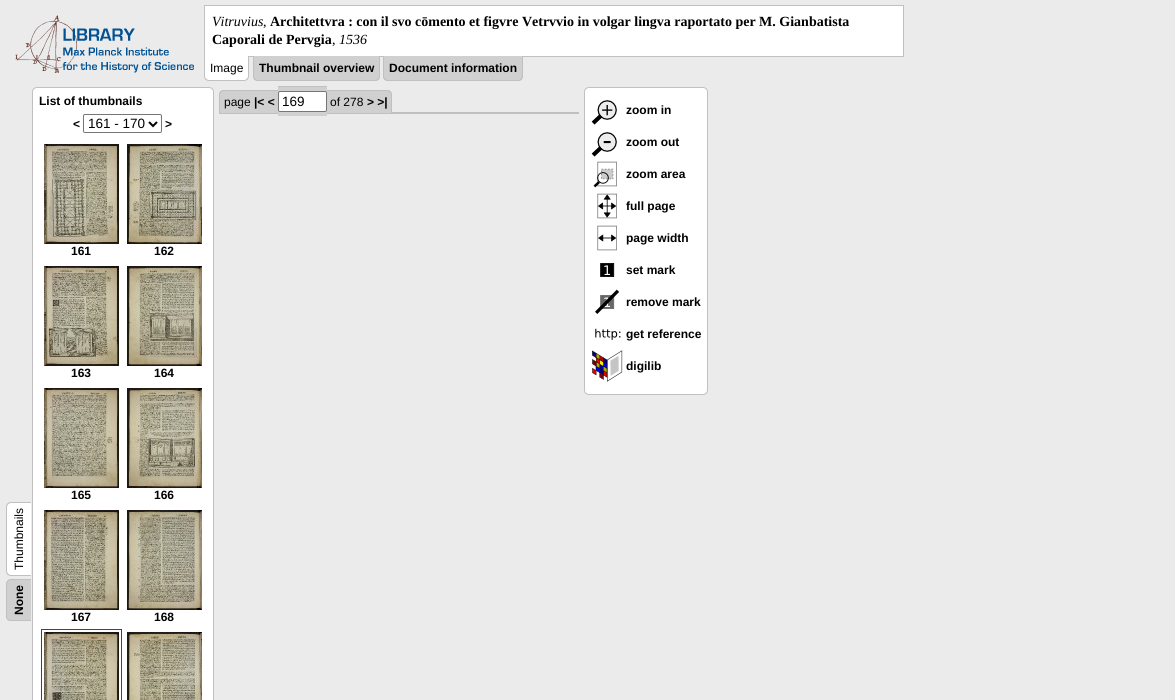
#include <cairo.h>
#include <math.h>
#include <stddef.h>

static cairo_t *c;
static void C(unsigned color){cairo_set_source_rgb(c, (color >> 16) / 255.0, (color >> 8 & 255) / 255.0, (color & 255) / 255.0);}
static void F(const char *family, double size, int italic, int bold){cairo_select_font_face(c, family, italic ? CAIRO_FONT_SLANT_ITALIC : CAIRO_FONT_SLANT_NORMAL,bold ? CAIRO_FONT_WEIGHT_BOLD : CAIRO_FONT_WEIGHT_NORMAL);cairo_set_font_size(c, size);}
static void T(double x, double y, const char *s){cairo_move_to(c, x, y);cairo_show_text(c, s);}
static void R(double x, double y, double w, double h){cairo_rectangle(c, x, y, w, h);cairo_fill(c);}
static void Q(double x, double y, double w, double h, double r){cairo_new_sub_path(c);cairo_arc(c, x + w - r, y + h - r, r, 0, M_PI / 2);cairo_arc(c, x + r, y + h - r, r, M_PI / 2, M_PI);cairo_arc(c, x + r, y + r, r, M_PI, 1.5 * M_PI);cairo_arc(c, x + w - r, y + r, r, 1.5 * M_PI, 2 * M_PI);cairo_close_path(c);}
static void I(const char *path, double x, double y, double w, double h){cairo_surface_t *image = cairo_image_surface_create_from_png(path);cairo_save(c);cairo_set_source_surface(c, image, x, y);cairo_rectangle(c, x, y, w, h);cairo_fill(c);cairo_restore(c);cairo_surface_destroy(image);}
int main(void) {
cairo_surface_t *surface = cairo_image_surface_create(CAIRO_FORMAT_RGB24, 1175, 700);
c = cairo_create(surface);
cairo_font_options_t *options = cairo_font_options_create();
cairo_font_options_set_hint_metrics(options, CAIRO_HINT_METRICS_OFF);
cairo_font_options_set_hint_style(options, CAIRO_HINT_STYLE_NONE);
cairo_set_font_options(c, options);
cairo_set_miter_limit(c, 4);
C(0xebebeb);
cairo_paint(c);
I("1.png",15,15,179,58);
C(0xffffff);
cairo_rectangle(c,204.5,5.5,699,51);
cairo_fill_preserve(c);
C(0xc0c0c0);
cairo_set_line_width(c,1);
cairo_stroke(c);
F("Liberation Serif",14,1,0);
C(0x000000);
T(212,26,"Vitruvius");
F("Liberation Serif",14,0,0);
T(263,26,",");
F("Liberation Serif",14,0,1);
T(270,26,"Architettvra : con il svo cōmento et figvre Vetrvvio in volgar lingva raportato per M. Gianbatista");
T(212,44,"Caporali de Pervgia");
F("Liberation Serif",14,0,0);
T(332,44,",");
F("Liberation Serif",14,1,0);
T(339,44,"1536");
C(0xffffff);
cairo_new_path(c);
cairo_move_to(c,204,56);
cairo_line_to(c,249,56);
cairo_line_to(c,249,76);
cairo_curve_to(c,249,79,247,81,244,81);
cairo_line_to(c,209,81);
cairo_curve_to(c,206,81,204,79,204,76);
cairo_close_path(c);
cairo_fill(c);
C(0xc0c0c0);
cairo_set_fill_rule(c,CAIRO_FILL_RULE_EVEN_ODD);
cairo_new_path(c);
cairo_move_to(c,204,56);
cairo_line_to(c,249,56);
cairo_line_to(c,249,76);
cairo_curve_to(c,249,79,247,81,244,81);
cairo_line_to(c,209,81);
cairo_curve_to(c,206,81,204,79,204,76);
cairo_close_path(c);
cairo_move_to(c,205,56);
cairo_line_to(c,248,56);
cairo_line_to(c,248,76);
cairo_curve_to(c,248,78,246,80,244,80);
cairo_line_to(c,209,80);
cairo_curve_to(c,207,80,205,78,205,76);
cairo_close_path(c);
cairo_fill(c);
F("Liberation Sans",12,0,0);
C(0x000000);
T(210,72,"Image");
C(0xd0d0d0);
cairo_new_path(c);
cairo_move_to(c,253,56);
cairo_line_to(c,380,56);
cairo_line_to(c,380,76);
cairo_curve_to(c,380,79,378,81,375,81);
cairo_line_to(c,258,81);
cairo_curve_to(c,255,81,253,79,253,76);
cairo_close_path(c);
cairo_fill(c);
C(0xc0c0c0);
cairo_new_path(c);
cairo_move_to(c,253,56);
cairo_line_to(c,380,56);
cairo_line_to(c,380,76);
cairo_curve_to(c,380,79,378,81,375,81);
cairo_line_to(c,258,81);
cairo_curve_to(c,255,81,253,79,253,76);
cairo_close_path(c);
cairo_move_to(c,254,56);
cairo_line_to(c,379,56);
cairo_line_to(c,379,76);
cairo_curve_to(c,379,78,377,80,375,80);
cairo_line_to(c,258,80);
cairo_curve_to(c,256,80,254,78,254,76);
cairo_close_path(c);
cairo_fill(c);
F("Liberation Sans",12,0,1);
C(0x000000);
T(259,72,"Thumbnail overview");
C(0xd0d0d0);
cairo_new_path(c);
cairo_move_to(c,383,56);
cairo_line_to(c,523,56);
cairo_line_to(c,523,76);
cairo_curve_to(c,523,79,521,81,518,81);
cairo_line_to(c,388,81);
cairo_curve_to(c,385,81,383,79,383,76);
cairo_close_path(c);
cairo_fill(c);
C(0xc0c0c0);
cairo_new_path(c);
cairo_move_to(c,383,56);
cairo_line_to(c,523,56);
cairo_line_to(c,523,76);
cairo_curve_to(c,523,79,521,81,518,81);
cairo_line_to(c,388,81);
cairo_curve_to(c,385,81,383,79,383,76);
cairo_close_path(c);
cairo_move_to(c,384,56);
cairo_line_to(c,522,56);
cairo_line_to(c,522,76);
cairo_curve_to(c,522,78,520,80,518,80);
cairo_line_to(c,388,80);
cairo_curve_to(c,386,80,384,78,384,76);
cairo_close_path(c);
cairo_fill(c);
C(0x000000);
T(389,72,"Document information");
C(0xffffff);
cairo_set_fill_rule(c,CAIRO_FILL_RULE_WINDING);
cairo_new_path(c);
cairo_move_to(c,6,571);
cairo_line_to(c,6,507);
cairo_curve_to(c,6,504,8,502,11,502);
cairo_line_to(c,31,502);
cairo_line_to(c,31,576);
cairo_line_to(c,11,576);
cairo_curve_to(c,8,576,6,574,6,571);
cairo_close_path(c);
cairo_fill(c);
C(0xc0c0c0);
cairo_set_fill_rule(c,CAIRO_FILL_RULE_EVEN_ODD);
cairo_new_path(c);
cairo_move_to(c,6,571);
cairo_line_to(c,6,507);
cairo_curve_to(c,6,504,8,502,11,502);
cairo_line_to(c,31,502);
cairo_line_to(c,31,576);
cairo_line_to(c,11,576);
cairo_curve_to(c,8,576,6,574,6,571);
cairo_close_path(c);
cairo_move_to(c,7,571);
cairo_line_to(c,7,507);
cairo_curve_to(c,7,505,9,503,11,503);
cairo_line_to(c,31,503);
cairo_line_to(c,31,575);
cairo_line_to(c,11,575);
cairo_curve_to(c,9,575,7,573,7,571);
cairo_close_path(c);
cairo_fill(c);
F("Liberation Sans",12,0,0);
C(0x000000);
cairo_save(c);
cairo_translate(c,23,570);
cairo_rotate(c,-90 * M_PI / 180);
T(0,0,"Thumbnails");
cairo_restore(c);
C(0xd0d0d0);
cairo_set_fill_rule(c,CAIRO_FILL_RULE_WINDING);
cairo_new_path(c);
cairo_move_to(c,6,616);
cairo_line_to(c,6,584);
cairo_curve_to(c,6,582,8,579,11,579);
cairo_line_to(c,31,579);
cairo_line_to(c,31,621);
cairo_line_to(c,11,621);
cairo_curve_to(c,8,621,6,619,6,616);
cairo_close_path(c);
cairo_fill(c);
C(0xc0c0c0);
cairo_set_fill_rule(c,CAIRO_FILL_RULE_EVEN_ODD);
cairo_new_path(c);
cairo_move_to(c,6,616);
cairo_line_to(c,6,584);
cairo_curve_to(c,6,582,8,579,11,579);
cairo_line_to(c,31,579);
cairo_line_to(c,31,621);
cairo_line_to(c,11,621);
cairo_curve_to(c,8,621,6,619,6,616);
cairo_close_path(c);
cairo_move_to(c,7,616);
cairo_line_to(c,7,584);
cairo_curve_to(c,7,582,9,580,11,580);
cairo_line_to(c,31,580);
cairo_line_to(c,31,620);
cairo_line_to(c,11,620);
cairo_curve_to(c,9,620,7,619,7,616);
cairo_close_path(c);
cairo_fill(c);
F("Liberation Sans",12,0,1);
C(0x000000);
cairo_save(c);
cairo_translate(c,23,615);
cairo_rotate(c,-90 * M_PI / 180);
T(0,0,"None");
cairo_restore(c);
C(0xffffff);
Q(32.5,87.5,181,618,4.5);
cairo_fill_preserve(c);
C(0xc0c0c0);
cairo_stroke(c);
C(0x000000);
T(39,105,"List of thumbnails");
T(73,128,"<");
Q(83.5,114.5,78,18,1.5);
C(0x767676);
cairo_stroke(c);
cairo_new_path(c);
cairo_move_to(c,149,122);
cairo_line_to(c,153,126);
cairo_line_to(c,157,122);
C(0x000000);
cairo_set_line_width(c,2);
cairo_stroke(c);
F("Liberation Sans",13.5,0,0);
T(88,128,"161 - 170");
F("Liberation Sans",12,0,1);
T(165,128,">");
I("2.png",44,144,75,100);
T(71,255,"161");
I("3.png",127,144,75,100);
T(154,255,"162");
I("4.png",44,266,75,100);
T(71,377,"163");
I("5.png",127,266,75,100);
T(154,377,"164");
I("6.png",44,388,75,100);
T(71,499,"165");
I("7.png",127,388,75,100);
T(154,499,"166");
I("8.png",44,510,75,100);
T(71,621,"167");
I("9.png",127,510,75,100);
T(154,621,"168");
cairo_rectangle(c,41.5,629.5,80,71);
C(0x892b06);
cairo_set_line_width(c,1);
cairo_stroke(c);
I("10.png",44,632,75,68);
I("11.png",127,632,75,68);
C(0xc0c0c0);
R(219,112,360,2);
C(0xd0d0d0);
cairo_new_path(c);
cairo_move_to(c,224,90);
cairo_line_to(c,254,90);
cairo_line_to(c,254,113);
cairo_line_to(c,219,113);
cairo_line_to(c,219,95);
cairo_curve_to(c,219,92,221,90,224,90);
cairo_close_path(c);
cairo_fill(c);
C(0xc0c0c0);
cairo_new_path(c);
cairo_move_to(c,224,90);
cairo_line_to(c,254,90);
cairo_line_to(c,254,113);
cairo_line_to(c,219,113);
cairo_line_to(c,219,95);
cairo_curve_to(c,219,92,221,90,224,90);
cairo_close_path(c);
cairo_move_to(c,224,91);
cairo_line_to(c,254,91);
cairo_line_to(c,254,113);
cairo_line_to(c,220,113);
cairo_line_to(c,220,95);
cairo_curve_to(c,220,93,222,91,224,91);
cairo_close_path(c);
cairo_fill(c);
C(0xd0d0d0);
R(254,91,10,22);
C(0xc0c0c0);
R(254,90,10,1);
C(0xd0d0d0);
R(264,90,14,23);
C(0xc0c0c0);
R(264,90,14,1);
C(0xd0d0d0);
R(278,87,49,29);
C(0xc0c0c0);
R(278,86,49,1);
C(0xd0d0d0);
R(327,90,3,23);
C(0xc0c0c0);
R(327,90,40,1);
C(0xd0d0d0);
R(330,91,37,22);
R(367,90,10,23);
C(0xc0c0c0);
R(367,90,10,1);
C(0xd0d0d0);
cairo_new_path(c);
cairo_move_to(c,377,90);
cairo_line_to(c,387,90);
cairo_curve_to(c,390,90,392,92,392,95);
cairo_line_to(c,392,113);
cairo_line_to(c,377,113);
cairo_close_path(c);
cairo_fill(c);
C(0xc0c0c0);
cairo_new_path(c);
cairo_move_to(c,377,90);
cairo_line_to(c,387,90);
cairo_curve_to(c,390,90,392,92,392,95);
cairo_line_to(c,392,113);
cairo_line_to(c,377,113);
cairo_close_path(c);
cairo_move_to(c,377,91);
cairo_line_to(c,387,91);
cairo_curve_to(c,389,91,391,93,391,95);
cairo_line_to(c,391,113);
cairo_line_to(c,377,113);
cairo_close_path(c);
cairo_fill(c);
F("Liberation Sans",12,0,0);
C(0x000000);
T(224,106,"page");
F("Liberation Sans",12,0,1);
T(254,106,"|< <");
C(0xffffff);
Q(278.5,91.5,48,20,1.5);
cairo_fill_preserve(c);
C(0x767676);
cairo_stroke(c);
F("Liberation Sans",13.5,0,0);
C(0x000000);
T(282,106,"169");
F("Liberation Sans",12,0,0);
T(330,106,"of 278");
F("Liberation Sans",12,0,1);
T(367,106,"> >|");
C(0xffffff);
Q(584.5,87.5,123,307,4.5);
cairo_fill_preserve(c);
C(0xc0c0c0);
cairo_stroke(c);
I("12.png",591,100,26,25);
C(0x000000);
T(626,114,"zoom in");
I("13.png",591,132,26,25);
T(626,146,"zoom out");
I("14.png",593,161,24,27);
T(626,178,"zoom area");
I("15.png",597,193,20,26);
T(626,210,"full page");
I("16.png",597,225,20,26);
T(626,242,"page width");
I("17.png",600,263,15,14);
T(626,274,"set mark");
I("18.png",595,289,24,25);
T(626,306,"remove mark");
I("19.png",595,328,26,12);
T(626,338,"get reference");
I("20.png",592,350,31,32);
T(626,370,"digilib");
cairo_surface_write_to_png(surface, "o.png");
cairo_font_options_destroy(options);
cairo_destroy(c);
cairo_surface_destroy(surface);
return 0;
}
